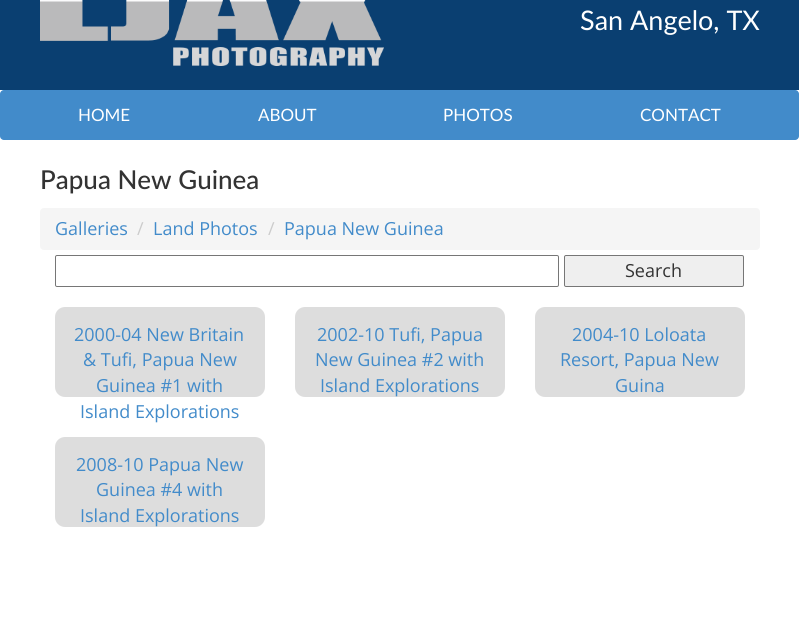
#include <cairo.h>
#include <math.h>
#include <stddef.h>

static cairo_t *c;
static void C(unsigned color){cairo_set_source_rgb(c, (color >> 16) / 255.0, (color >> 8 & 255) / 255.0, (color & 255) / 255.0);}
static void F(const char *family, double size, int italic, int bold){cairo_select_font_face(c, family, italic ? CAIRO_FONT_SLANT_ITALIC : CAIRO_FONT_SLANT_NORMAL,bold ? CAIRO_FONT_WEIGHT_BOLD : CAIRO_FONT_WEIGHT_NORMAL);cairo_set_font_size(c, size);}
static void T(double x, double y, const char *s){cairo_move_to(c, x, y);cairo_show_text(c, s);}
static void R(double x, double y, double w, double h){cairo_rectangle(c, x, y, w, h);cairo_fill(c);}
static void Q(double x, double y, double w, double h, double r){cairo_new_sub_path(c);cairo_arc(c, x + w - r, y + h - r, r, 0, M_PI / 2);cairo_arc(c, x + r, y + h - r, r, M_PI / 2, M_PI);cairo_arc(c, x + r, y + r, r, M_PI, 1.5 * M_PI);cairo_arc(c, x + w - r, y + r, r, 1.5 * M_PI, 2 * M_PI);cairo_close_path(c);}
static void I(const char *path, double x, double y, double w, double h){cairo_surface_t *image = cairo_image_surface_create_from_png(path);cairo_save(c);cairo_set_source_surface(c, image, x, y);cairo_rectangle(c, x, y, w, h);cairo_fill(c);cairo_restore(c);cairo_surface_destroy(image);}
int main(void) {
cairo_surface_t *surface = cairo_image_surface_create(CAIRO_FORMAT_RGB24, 799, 622);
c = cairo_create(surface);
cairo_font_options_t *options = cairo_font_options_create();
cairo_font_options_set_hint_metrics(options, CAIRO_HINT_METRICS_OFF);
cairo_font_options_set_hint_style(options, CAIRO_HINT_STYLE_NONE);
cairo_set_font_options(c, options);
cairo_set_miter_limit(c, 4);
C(0xffffff);
cairo_paint(c);
C(0x0a3f71);
R(0,0,799,90);
I("1.png",40,0,344,66);
F("Lato",27,0,0);
C(0xffffff);
T(580,30,"San Angelo, TX");
C(0x428bca);
Q(0,90,799,50,4);
cairo_fill(c);
F("Lato",17,0,0);
C(0xffffff);
T(78,121,"HOME");
T(258,121,"ABOUT");
T(443,121,"PHOTOS");
T(640,121,"CONTACT");
F("Lato Medium",26,0,0);
C(0x333333);
T(40,189,"Papua New Guinea");
C(0xf5f5f5);
Q(40,208,720,42,4);
cairo_fill(c);
F("Open Sans",18,0,0);
C(0x428bca);
T(55,235,"Galleries");
C(0xcccccc);
T(137,235,"/");
C(0x428bca);
T(153,235,"Land Photos");
C(0xcccccc);
T(268,235,"/");
C(0x428bca);
T(284,235,"Papua New Guinea");
Q(55.5,255.5,503,31,1.5);
C(0x767676);
cairo_set_line_width(c,1);
cairo_stroke(c);
C(0xefefef);
Q(564.5,255.5,179,31,1.5);
cairo_fill_preserve(c);
C(0x767676);
cairo_stroke(c);
C(0x333333);
T(625,277,"Search");
C(0xdddddd);
Q(55,307,210,90,10);
cairo_fill(c);
C(0x428bca);
T(74,341,"2000-04 New Britain");
T(83,366,"& Tufi, Papua New");
T(96,392,"Guinea #1 with");
T(80,418,"Island Explorations");
C(0xdddddd);
Q(295,307,210,90,10);
cairo_fill(c);
C(0x428bca);
T(317,341,"2002-10 Tufi, Papua");
T(315,366,"New Guinea #2 with");
T(320,392,"Island Explorations");
C(0xdddddd);
Q(535,307,210,90,10);
cairo_fill(c);
C(0x428bca);
T(572,341,"2004-10 Loloata");
T(560,366,"Resort, Papua New");
T(615,392,"Guina");
C(0xdddddd);
Q(55,437,210,90,10);
cairo_fill(c);
C(0x428bca);
T(76,471,"2008-10 Papua New");
T(96,496,"Guinea #4 with");
T(80,522,"Island Explorations");
cairo_surface_write_to_png(surface, "o.png");
cairo_font_options_destroy(options);
cairo_destroy(c);
cairo_surface_destroy(surface);
return 0;
}
